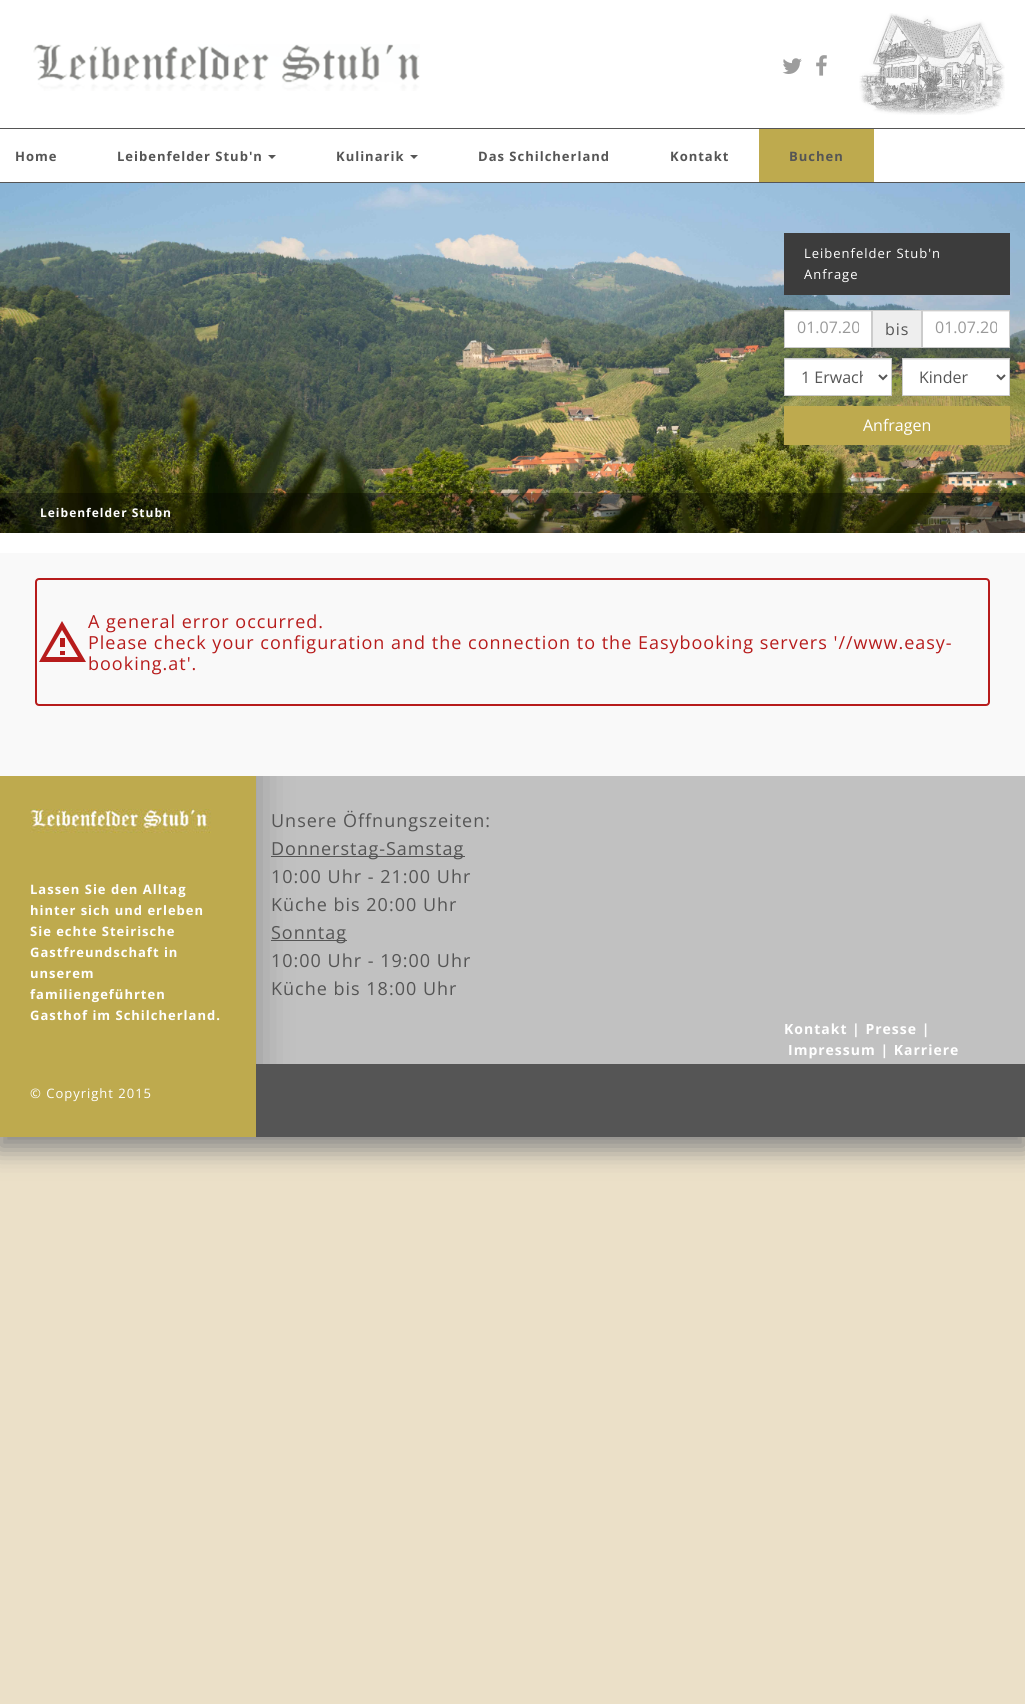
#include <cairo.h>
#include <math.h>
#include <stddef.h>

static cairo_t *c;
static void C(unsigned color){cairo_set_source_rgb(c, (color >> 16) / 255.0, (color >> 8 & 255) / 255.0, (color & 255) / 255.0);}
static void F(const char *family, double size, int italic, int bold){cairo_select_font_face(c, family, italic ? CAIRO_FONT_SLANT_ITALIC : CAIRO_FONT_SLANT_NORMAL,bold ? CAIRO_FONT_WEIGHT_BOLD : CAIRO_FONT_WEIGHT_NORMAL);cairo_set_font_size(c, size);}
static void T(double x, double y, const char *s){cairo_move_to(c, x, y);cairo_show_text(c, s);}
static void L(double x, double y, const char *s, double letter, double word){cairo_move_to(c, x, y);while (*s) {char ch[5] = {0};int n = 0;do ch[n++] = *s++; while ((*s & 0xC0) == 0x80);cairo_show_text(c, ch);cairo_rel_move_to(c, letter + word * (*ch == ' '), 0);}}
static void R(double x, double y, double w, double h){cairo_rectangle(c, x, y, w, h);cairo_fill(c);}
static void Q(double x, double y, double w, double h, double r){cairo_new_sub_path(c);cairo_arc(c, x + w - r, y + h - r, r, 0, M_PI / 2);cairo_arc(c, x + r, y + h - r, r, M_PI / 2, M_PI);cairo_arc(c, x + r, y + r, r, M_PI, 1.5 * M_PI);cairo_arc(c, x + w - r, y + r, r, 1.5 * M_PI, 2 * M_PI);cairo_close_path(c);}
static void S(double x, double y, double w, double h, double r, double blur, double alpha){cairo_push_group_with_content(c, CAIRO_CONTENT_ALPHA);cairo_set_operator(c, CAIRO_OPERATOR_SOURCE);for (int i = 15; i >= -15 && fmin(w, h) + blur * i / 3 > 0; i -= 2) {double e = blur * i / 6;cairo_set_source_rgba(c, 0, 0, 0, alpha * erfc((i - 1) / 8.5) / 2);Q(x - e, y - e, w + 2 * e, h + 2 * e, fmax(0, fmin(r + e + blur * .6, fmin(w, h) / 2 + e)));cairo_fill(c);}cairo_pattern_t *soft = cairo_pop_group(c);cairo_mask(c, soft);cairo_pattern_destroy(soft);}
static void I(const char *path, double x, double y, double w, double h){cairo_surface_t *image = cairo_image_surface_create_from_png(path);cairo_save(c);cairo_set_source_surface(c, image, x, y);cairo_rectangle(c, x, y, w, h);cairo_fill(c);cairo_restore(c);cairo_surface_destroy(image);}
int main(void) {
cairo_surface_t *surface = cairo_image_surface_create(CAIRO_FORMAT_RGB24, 1025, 1704);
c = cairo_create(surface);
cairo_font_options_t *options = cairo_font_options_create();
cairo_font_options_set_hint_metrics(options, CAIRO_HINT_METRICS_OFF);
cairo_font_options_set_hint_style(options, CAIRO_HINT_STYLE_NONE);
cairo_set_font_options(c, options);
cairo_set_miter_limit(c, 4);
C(0xebe0c8);
cairo_paint(c);
C(0x888888);
S(-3,7,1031,1143,0,12.5,1);
C(0xffffff);
R(0,0,1025,553);
I("1.png",33,44,387,47);
I("2.png",782,58,20,16);
I("3.png",816,55,11,21);
I("4.png",859,13,146,102);
C(0x555555);
R(0,128,1025,1);
R(0,182,1025,1);
F("Open Sans",13,0,1);
L(15,161,"Home",1,0);
L(117,161,"Leibenfelder Stub'n",1,0);
cairo_new_path(c);
cairo_move_to(c,268,155);
cairo_line_to(c,276,155);
cairo_line_to(c,272,159);
cairo_close_path(c);
cairo_fill(c);
L(336,161,"Kulinarik",1,0);
cairo_new_path(c);
cairo_move_to(c,410,155);
cairo_line_to(c,418,155);
cairo_line_to(c,414,159);
cairo_close_path(c);
cairo_fill(c);
L(478,161,"Das Schilcherland",1,0);
L(670,161,"Kontakt",1,0);
C(0xbeaa4e);
R(759,129,115,53);
C(0x555555);
L(789,161,"Buchen",1,0);
I("5.png",0,183,1025,350);
C(0x3c3c3c);
R(784,233,226,62);
F("Open Sans",13,0,0);
C(0xffffff);
L(804,258,"Leibenfelder Stub'n",1,0);
L(804,279,"Anfrage",1,0);
R(785,312,86,35);
C(0xececec);
R(785,311,86,1);
cairo_rectangle(c,784.5,310.5,87,37);
C(0xcccccc);
cairo_set_line_width(c,1);
cairo_stroke(c);
cairo_save(c);
cairo_rectangle(c,797,316,62,22);
cairo_clip(c);
F("Open Sans",16,0,0);
C(0x999999);
T(797,333,"01.07.20");
cairo_restore(c);
C(0xeeeeee);
cairo_rectangle(c,872.5,310.5,49,37);
cairo_fill_preserve(c);
C(0xcccccc);
cairo_stroke(c);
F("Open Sans",16,0,0);
C(0x555555);
L(885,335,"bis",1,0);
C(0xffffff);
R(923,312,86,35);
C(0xececec);
R(923,311,86,1);
cairo_rectangle(c,922.5,310.5,87,37);
C(0xcccccc);
cairo_stroke(c);
cairo_save(c);
cairo_rectangle(c,935,316,62,22);
cairo_clip(c);
C(0x999999);
T(935,333,"01.07.20");
cairo_restore(c);
C(0xffffff);
R(785,360,106,35);
C(0xececec);
R(785,359,106,1);
cairo_rectangle(c,784.5,358.5,107,37);
C(0xcccccc);
cairo_stroke(c);
cairo_new_path(c);
cairo_move_to(c,879,375);
cairo_line_to(c,883,379);
cairo_line_to(c,887,375);
C(0x555555);
cairo_set_line_width(c,2);
cairo_stroke(c);
cairo_save(c);
cairo_rectangle(c,801,365,62,24);
cairo_clip(c);
T(801,383,"1 Erwach");
cairo_restore(c);
C(0xffffff);
R(903,360,106,35);
C(0xececec);
R(903,359,106,1);
cairo_rectangle(c,902.5,358.5,107,37);
C(0xcccccc);
cairo_set_line_width(c,1);
cairo_stroke(c);
cairo_new_path(c);
cairo_move_to(c,997,375);
cairo_line_to(c,1001,379);
cairo_line_to(c,1005,375);
C(0x555555);
cairo_set_line_width(c,2);
cairo_stroke(c);
T(919,383,"Kinder");
C(0xbeaa4e);
R(784,406,226,39);
C(0xffffff);
T(863,431,"Anfragen");
cairo_set_source_rgba(c,0,0,0,0.35);
R(0,493,1025,40);
F("Open Sans",12,0,1);
C(0xffffff);
L(40,517,"Leibenfelder Stubn",1,0);
C(0xf9f9f9);
R(0,553,1025,223);
Q(36,579,953,126,3);
C(0xb71c1c);
cairo_stroke(c);
cairo_new_path(c);
cairo_move_to(c,62,621);
cairo_line_to(c,39,662);
cairo_line_to(c,86,662);
cairo_move_to(c,62,630);
cairo_line_to(c,78,657);
cairo_line_to(c,46,657);
cairo_move_to(c,60,638);
cairo_line_to(c,60,647);
cairo_line_to(c,65,647);
cairo_line_to(c,65,638);
cairo_move_to(c,60,651);
cairo_line_to(c,60,655);
cairo_line_to(c,65,655);
cairo_line_to(c,65,651);
cairo_fill(c);
F("Open Sans",18,0,0);
L(88,628,"A general error occurred.",1,0);
L(88,649,"Please check your configuration and the connection to the Easybooking servers '//www.easy-",1,0);
L(88,670,"booking.at'.",1,0);
C(0xc1c1c1);
R(256,776,769,288);
cairo_save(c);
cairo_rectangle(c,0,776,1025,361);
cairo_clip(c);
C(0x000000);
S(7,761,246,371,0,20,.3);
cairo_restore(c);
C(0xbeaa4e);
R(0,776,256,361);
I("6.png",30,809,181,24);
F("Open Sans",13,0,1);
C(0xffffff);
L(30,894,"Lassen Sie den Alltag",1,0);
L(30,915,"hinter sich und erleben",1,0);
L(30,936,"Sie echte Steirische",1,0);
L(30,957,"Gastfreundschaft in",1,0);
L(30,978,"unserem",1,0);
L(30,999,"familiengeführten",1,0);
L(30,1020,"Gasthof im Schilcherland.",1,0);
F("Open Sans",13,0,0);
L(30,1098,"© Copyright 2015",1,0);
F("Open Sans",18,0,0);
C(0x555555);
L(271,827,"Unsere Öffnungszeiten:",1,0);
R(271,856,194,1);
L(271,855,"Donnerstag-Samstag",1,0);
L(271,883,"10:00 Uhr - 21:00 Uhr",1,0);
L(271,911,"Küche bis 20:00 Uhr",1,0);
R(271,940,76,1);
L(271,939,"Sonntag",1,0);
L(271,967,"10:00 Uhr - 19:00 Uhr",1,0);
L(271,995,"Küche bis 18:00 Uhr",1,0);
F("Open Sans",14,0,1);
C(0xffffff);
L(784,1034,"Kontakt | Presse |",1,0);
L(788,1055,"Impressum | Karriere",1,0);
C(0x555555);
R(256,1064,769,73);
cairo_surface_write_to_png(surface, "o.png");
cairo_font_options_destroy(options);
cairo_destroy(c);
cairo_surface_destroy(surface);
return 0;
}
